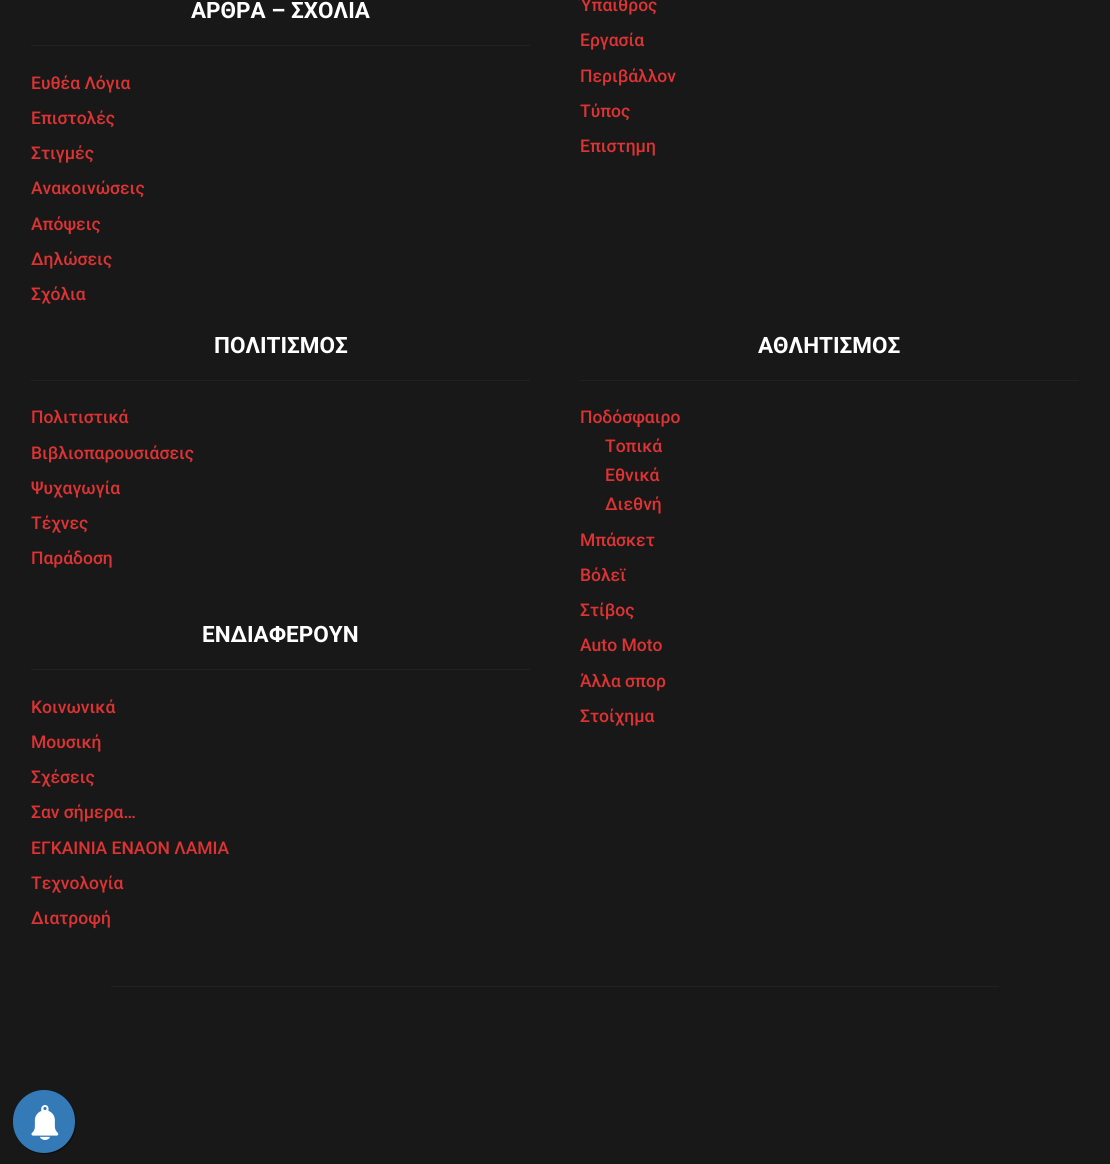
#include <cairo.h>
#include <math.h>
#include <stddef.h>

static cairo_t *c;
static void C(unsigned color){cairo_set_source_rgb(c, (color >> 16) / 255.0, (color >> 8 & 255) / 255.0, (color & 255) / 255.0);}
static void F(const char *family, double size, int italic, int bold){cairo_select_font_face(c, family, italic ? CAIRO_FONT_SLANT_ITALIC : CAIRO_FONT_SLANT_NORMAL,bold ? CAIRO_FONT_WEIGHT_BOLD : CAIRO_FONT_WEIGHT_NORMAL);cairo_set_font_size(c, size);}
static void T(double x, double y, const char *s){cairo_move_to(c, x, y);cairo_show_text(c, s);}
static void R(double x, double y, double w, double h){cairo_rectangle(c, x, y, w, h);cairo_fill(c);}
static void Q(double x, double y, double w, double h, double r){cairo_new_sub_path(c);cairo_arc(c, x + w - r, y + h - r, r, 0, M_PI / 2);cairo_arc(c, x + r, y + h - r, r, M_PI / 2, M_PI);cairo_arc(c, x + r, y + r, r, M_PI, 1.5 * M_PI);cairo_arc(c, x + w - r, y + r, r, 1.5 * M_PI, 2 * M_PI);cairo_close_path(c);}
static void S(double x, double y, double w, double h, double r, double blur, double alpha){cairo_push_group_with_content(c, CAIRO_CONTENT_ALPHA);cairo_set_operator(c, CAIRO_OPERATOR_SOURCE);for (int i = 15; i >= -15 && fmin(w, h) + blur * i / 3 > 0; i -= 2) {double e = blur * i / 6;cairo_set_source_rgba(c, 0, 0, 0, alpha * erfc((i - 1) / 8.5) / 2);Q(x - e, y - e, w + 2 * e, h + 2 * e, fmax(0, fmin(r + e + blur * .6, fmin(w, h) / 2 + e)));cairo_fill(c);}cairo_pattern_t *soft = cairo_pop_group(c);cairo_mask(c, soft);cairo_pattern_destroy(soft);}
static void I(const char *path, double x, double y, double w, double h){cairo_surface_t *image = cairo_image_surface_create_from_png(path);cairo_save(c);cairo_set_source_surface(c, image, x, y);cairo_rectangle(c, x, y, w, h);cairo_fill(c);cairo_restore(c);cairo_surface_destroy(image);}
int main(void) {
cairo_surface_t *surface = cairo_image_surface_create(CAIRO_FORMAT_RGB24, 1110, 1164);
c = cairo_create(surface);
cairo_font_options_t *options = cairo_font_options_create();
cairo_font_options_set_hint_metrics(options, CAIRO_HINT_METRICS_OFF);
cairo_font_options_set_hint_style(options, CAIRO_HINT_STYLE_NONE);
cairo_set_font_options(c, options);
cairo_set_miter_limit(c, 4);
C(0x181818);
cairo_paint(c);
C(0x212121);
R(31,45,499,1);
F("Roboto",22.5,0,1);
C(0xffffff);
T(191,18,"ΑΡΘΡΑ – ΣΧΟΛΙΑ");
F("Roboto Medium",17.5,0,0);
C(0xdd3333);
T(31,89,"Ευθέα Λόγια");
T(31,124,"Επιστολές");
T(31,159,"Στιγμές");
T(31,194,"Ανακοινώσεις");
T(31,230,"Απόψεις");
T(31,265,"Δηλώσεις");
T(31,300,"Σχόλια");
T(580,11,"Ύπαιθρος");
T(580,46,"Εργασία");
T(580,82,"Περιβάλλον");
T(580,117,"Τύπος");
T(580,152,"Επιστημη");
C(0x212121);
R(31,380,499,1);
F("Roboto",22.5,0,1);
C(0xffffff);
T(214,353,"ΠΟΛΙΤΙΣΜΟΣ");
F("Roboto Medium",17.5,0,0);
C(0xdd3333);
T(31,423,"Πολιτιστικά");
T(31,459,"Βιβλιοπαρουσιάσεις");
T(31,494,"Ψυχαγωγία");
T(31,529,"Τέχνες");
T(31,564,"Παράδοση");
C(0x212121);
R(31,669,499,1);
F("Roboto",22.5,0,1);
C(0xffffff);
T(202,642,"ΕΝΔΙΑΦΕΡΟΥΝ");
F("Roboto Medium",17.5,0,0);
C(0xdd3333);
T(31,713,"Κοινωνικά");
T(31,748,"Μουσική");
T(31,783,"Σχέσεις");
T(31,818,"Σαν σήμερα…");
T(31,854,"ΕΓΚΑΙΝΙΑ ΕΝΑΟΝ ΛΑΜΙΑ");
T(31,889,"Τεχνολογία");
T(31,924,"Διατροφή");
C(0x212121);
R(580,380,499,1);
F("Roboto",22.5,0,1);
C(0xffffff);
T(758,353,"ΑΘΛΗΤΙΣΜΟΣ");
F("Roboto Medium",17.5,0,0);
C(0xdd3333);
T(580,423,"Ποδόσφαιρο");
T(605,452,"Τοπικά");
T(605,481,"Εθνικά");
T(605,510,"Διεθνή");
T(580,546,"Μπάσκετ");
T(580,581,"Βόλεϊ");
T(580,616,"Στίβος");
T(580,651,"Auto Moto");
T(580,687,"Άλλα σπορ");
T(580,722,"Στοίχημα");
C(0x212121);
R(111,986,888,1);
C(0x000000);
S(14,1091,62,63,31,.5,.5);
C(0x337ab7);
Q(13,1090,62,63,31);
cairo_fill(c);
I("1.png",31,1105,28,35);
cairo_surface_write_to_png(surface, "o.png");
cairo_font_options_destroy(options);
cairo_destroy(c);
cairo_surface_destroy(surface);
return 0;
}
